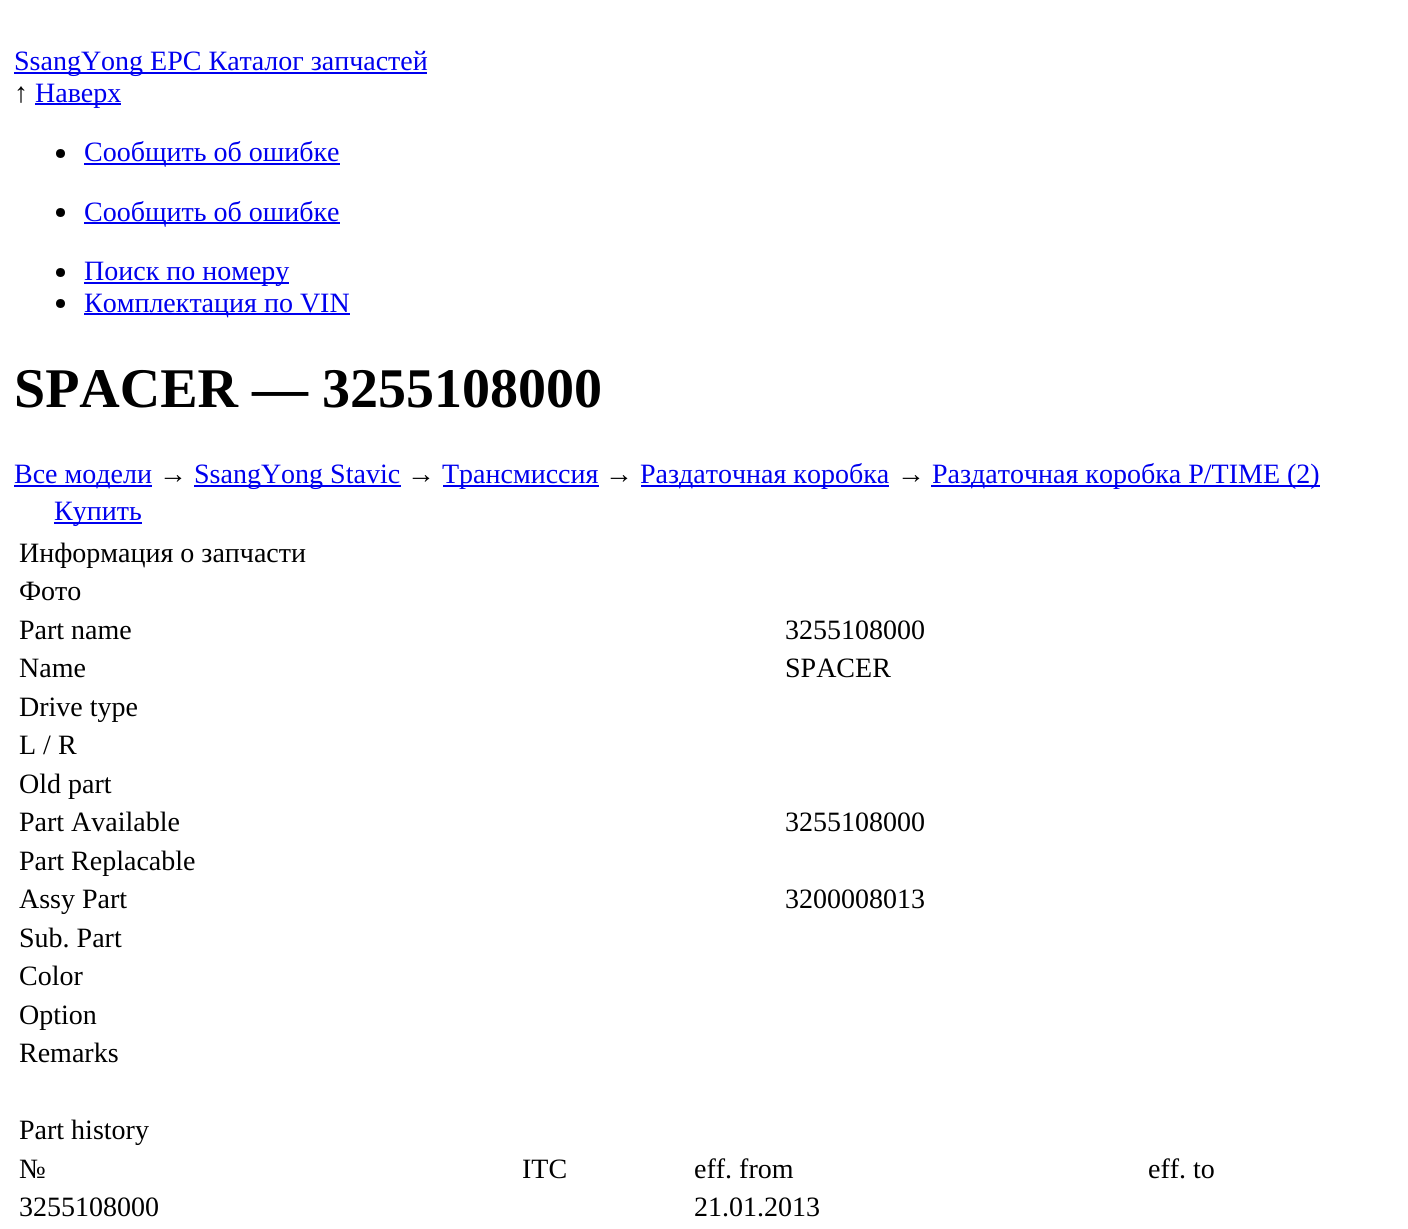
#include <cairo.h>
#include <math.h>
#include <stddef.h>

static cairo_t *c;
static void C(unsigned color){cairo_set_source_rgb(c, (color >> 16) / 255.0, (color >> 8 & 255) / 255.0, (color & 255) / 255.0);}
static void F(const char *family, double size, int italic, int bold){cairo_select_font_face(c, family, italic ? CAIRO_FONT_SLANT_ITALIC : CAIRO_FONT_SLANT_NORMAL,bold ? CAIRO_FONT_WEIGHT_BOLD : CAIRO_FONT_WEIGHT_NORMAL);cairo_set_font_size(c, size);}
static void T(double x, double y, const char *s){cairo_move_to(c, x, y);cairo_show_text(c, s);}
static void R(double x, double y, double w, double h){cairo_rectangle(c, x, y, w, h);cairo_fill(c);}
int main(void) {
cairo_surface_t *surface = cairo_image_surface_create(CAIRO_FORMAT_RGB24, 1408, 1229);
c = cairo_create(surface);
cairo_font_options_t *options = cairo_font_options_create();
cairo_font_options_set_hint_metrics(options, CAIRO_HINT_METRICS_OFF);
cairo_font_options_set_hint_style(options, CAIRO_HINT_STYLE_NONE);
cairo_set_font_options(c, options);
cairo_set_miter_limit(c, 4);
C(0xffffff);
cairo_paint(c);
C(0x0000ee);
R(14,72,413,2);
F("Liberation Serif",28,0,0);
T(14,70,"SsangYong EPC Каталог запчастей");
C(0x000000);
T(14,102,"↑");
C(0x0000ee);
R(35,103,86,2);
T(35,102,"Наверх");
C(0x000000);
cairo_new_path(c);
cairo_arc(c,60.5,153.5,4.5,0,2 * M_PI);
cairo_fill(c);
C(0x0000ee);
R(84,163,256,2);
T(84,161,"Сообщить об ошибке");
C(0x000000);
cairo_new_path(c);
cairo_arc(c,60.5,212.5,4.5,0,2 * M_PI);
cairo_fill(c);
C(0x0000ee);
R(84,222,256,2);
T(84,221,"Сообщить об ошибке");
C(0x000000);
cairo_new_path(c);
cairo_arc(c,60.5,272.5,4.5,0,2 * M_PI);
cairo_fill(c);
C(0x0000ee);
R(84,282,205,2);
T(84,280,"Поиск по номеру");
C(0x000000);
cairo_new_path(c);
cairo_arc(c,60.5,303.5,4.5,0,2 * M_PI);
cairo_fill(c);
C(0x0000ee);
R(84,313,266,2);
T(84,312,"Комплектация по VIN");
F("Liberation Serif",56,0,1);
C(0x000000);
T(14,407,"SPACER — 3255108000");
C(0x0000ee);
R(14,485,138,2);
F("Liberation Serif",28,0,0);
T(14,483,"Все модели");
C(0x000000);
T(159,483,"→");
C(0x0000ee);
R(194,485,207,2);
T(194,483,"SsangYong Stavic");
C(0x000000);
T(407,483,"→");
C(0x0000ee);
R(443,485,156,2);
T(442,483,"Трансмиссия");
C(0x000000);
T(605,483,"→");
C(0x0000ee);
R(641,485,248,2);
T(640,483,"Раздаточная коробка");
C(0x000000);
T(897,483,"→");
C(0x0000ee);
R(931,485,389,2);
T(932,483,"Раздаточная коробка P/TIME (2)");
R(54,522,88,2);
T(54,520,"Купить");
C(0x000000);
T(19,562,"Информация о запчасти");
T(19,600,"Фото");
T(19,639,"Part name");
T(785,639,"3255108000");
T(19,677,"Name");
T(785,677,"SPACER");
T(19,716,"Drive type");
T(19,754,"L / R");
T(19,793,"Old part");
T(19,831,"Part Available");
T(785,831,"3255108000");
T(19,870,"Part Replacable");
T(19,908,"Assy Part");
T(785,908,"3200008013");
T(19,947,"Sub. Part");
T(19,985,"Color");
T(19,1024,"Option");
T(19,1062,"Remarks");
T(19,1139,"Part history");
T(19,1178,"№");
T(522,1178,"ITC");
T(694,1178,"eff. from");
T(1148,1178,"eff. to");
T(19,1216,"3255108000");
T(694,1216,"21.01.2013");
cairo_surface_write_to_png(surface, "o.png");
cairo_font_options_destroy(options);
cairo_destroy(c);
cairo_surface_destroy(surface);
return 0;
}
